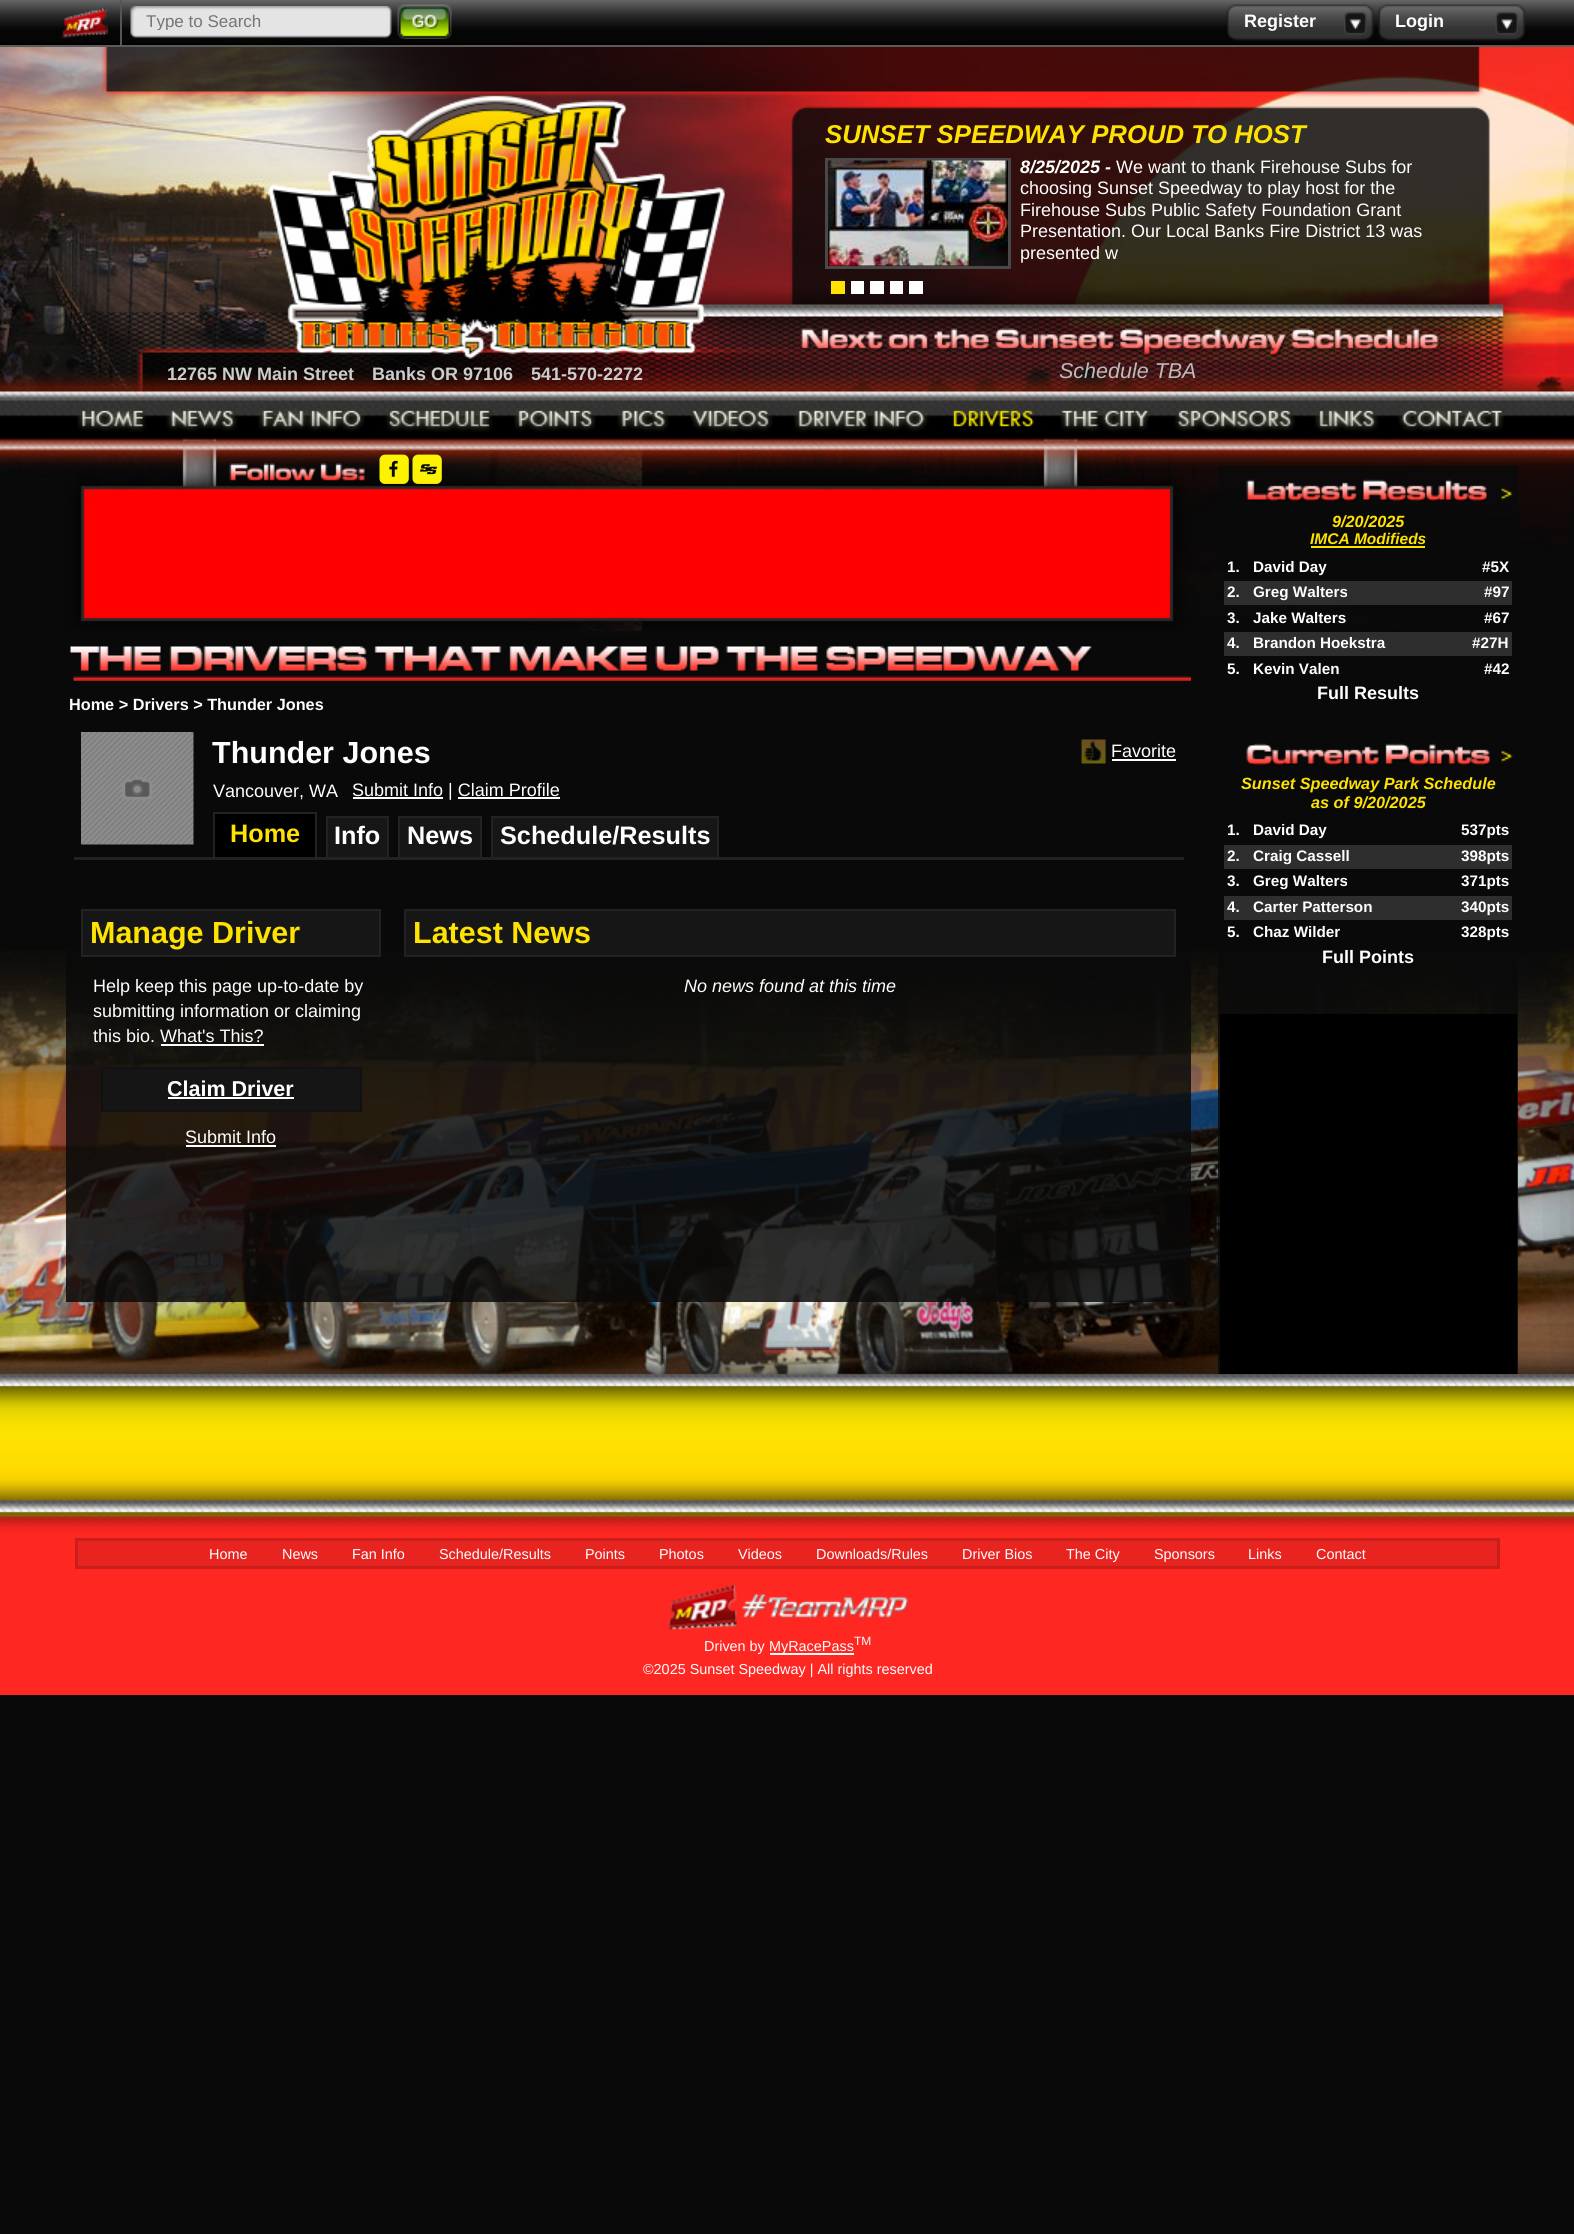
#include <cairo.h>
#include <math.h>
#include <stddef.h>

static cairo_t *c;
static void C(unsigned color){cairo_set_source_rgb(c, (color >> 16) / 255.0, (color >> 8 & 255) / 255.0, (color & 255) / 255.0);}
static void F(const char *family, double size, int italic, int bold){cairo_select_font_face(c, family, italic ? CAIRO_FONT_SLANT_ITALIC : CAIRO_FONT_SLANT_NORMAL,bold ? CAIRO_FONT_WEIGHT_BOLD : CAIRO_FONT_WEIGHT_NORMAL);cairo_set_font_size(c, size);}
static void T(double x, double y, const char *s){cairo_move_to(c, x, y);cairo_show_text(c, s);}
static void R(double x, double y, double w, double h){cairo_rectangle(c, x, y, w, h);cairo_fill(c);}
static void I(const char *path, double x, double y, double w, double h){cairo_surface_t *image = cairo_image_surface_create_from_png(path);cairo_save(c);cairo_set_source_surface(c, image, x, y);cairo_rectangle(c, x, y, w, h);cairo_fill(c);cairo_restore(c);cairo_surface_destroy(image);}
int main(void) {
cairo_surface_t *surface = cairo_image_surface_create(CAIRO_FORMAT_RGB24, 1574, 2234);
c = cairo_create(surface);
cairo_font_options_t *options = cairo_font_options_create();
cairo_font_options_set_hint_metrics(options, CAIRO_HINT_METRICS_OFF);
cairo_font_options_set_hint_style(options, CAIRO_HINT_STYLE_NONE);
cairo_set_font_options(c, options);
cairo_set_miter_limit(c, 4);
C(0x090909);
cairo_paint(c);
I("1.png",0,0,1574,45);
C(0x5c5b59);
R(0,45,1574,2);
C(0x555555);
R(120,0,2,45);
I("2.png",61,7,48,31);
I("3.png",138,6,246,32);
I("4.png",130,6,8,32);
cairo_save(c);
cairo_rectangle(c,146,12,231,18);
cairo_clip(c);
F("Liberation Sans",17,0,0);
C(0x757575);
T(146,27,"Type to Search");
cairo_restore(c);
I("5.png",384,6,8,32);
I("6.png",397,4,55,35);
I("7.png",1236,4,128,37);
I("8.png",1227,4,9,37);
F("Liberation Sans",18,0,1);
C(0xffffff);
T(1244,27,"Register");
I("10.png",1363,4,11,37);
I("9.png",1344,12,23,23);
I("11.png",1387,4,128,37);
I("12.png",1378,4,10,37);
T(1395,27,"Login");
I("14.png",1515,4,11,37);
I("13.png",1495,12,23,23);
I("15.png",0,1521,1574,174);
I("16.png",0,950,1574,571);
I("17.png",0,47,1574,589);
F("Liberation Sans",25.75,1,1);
C(0xfee202);
T(825,143,"SUNSET SPEEDWAY PROUD TO HOST");
F("Liberation Sans",18,1,1);
C(0xffffff);
T(1020,173,"8/25/2025 -");
F("Liberation Sans",18,0,0);
T(1116,173,"We want to thank Firehouse Subs for");
T(1020,194,"choosing Sunset Speedway to play host for the");
T(1020,216,"Firehouse Subs Public Safety Foundation Grant");
T(1020,237,"Presentation. Our Local Banks Fire District 13 was");
T(1020,259,"presented w");
cairo_rectangle(c,826.5,159.5,183,108);
C(0x484848);
cairo_set_line_width(c,3);
cairo_stroke(c);
I("18.png",828,160,180,106);
C(0xfee202);
R(831,281,14,13);
C(0xffffff);
R(851,281,13,13);
R(870,281,14,13);
R(890,281,13,13);
R(909,281,14,13);
F("Liberation Sans",18,0,1);
C(0xcccccc);
T(167,380,"12765 NW Main Street");
T(372,380,"Banks OR 97106");
T(531,380,"541-570-2272");
I("19.png",800,328,642,28);
F("Liberation Sans",21.5,1,0);
C(0xbbbbbb);
T(1059,378,"Schedule TBA");
I("20.png",77,408,70,24);
I("21.png",166,408,72,24);
I("22.png",258,408,107,24);
I("23.png",385,408,108,24);
I("24.png",514,408,82,24);
I("25.png",617,408,52,24);
I("26.png",690,408,83,24);
I("27.png",794,408,135,24);
I("28.png",952,410,82,17);
I("29.png",1060,408,90,24);
I("30.png",1174,408,121,24);
I("31.png",1314,408,65,24);
I("32.png",1398,408,106,24);
I("33.png",229,463,136,18);
I("34.png",379,454,30,30);
I("35.png",389,460,9,17);
I("36.png",412,454,30,30);
I("37.png",419,464,18,11);
cairo_set_source_rgba(c,0.039,0.039,0.039,0.84);
R(66,631,1125,671);
I("38.png",70,646,1023,26);
I("39.png",73,676,1118,5);
F("Liberation Sans",16.25,0,1);
C(0xffffff);
T(69,710,"Home > Drivers > Thunder Jones");
I("40.png",81,732,113,113);
F("Liberation Sans",30.5,0,1);
T(212,763,"Thunder Jones");
I("41.png",1081,739,25,25);
F("Liberation Sans",18,0,0);
T(1111,757,"Favorite");
R(1112,759,64,2);
T(213,797,"Vancouver, WA");
R(353,797,90,2);
T(352,796,"Submit Info | Claim Profile");
R(458,797,102,2);
C(0x222222);
R(74,857,1110,3);
C(0x000000);
R(215,814,100,43);
C(0x222222);
R(213,812,104,2);
R(315,812,2,45);
R(213,812,2,45);
F("Liberation Sans",25.25,0,1);
C(0xfee202);
T(230,842,"Home");
C(0x161616);
R(328,818,59,39);
C(0x222222);
R(326,816,63,2);
R(387,816,2,41);
R(326,816,2,41);
C(0xffffff);
T(334,844,"Info");
C(0x161616);
R(400,818,80,39);
C(0x222222);
R(398,816,84,2);
R(480,816,2,41);
R(398,816,2,41);
C(0xffffff);
T(407,844,"News");
C(0x161616);
R(493,818,224,39);
C(0x222222);
R(491,816,228,2);
R(717,816,2,41);
R(491,816,2,41);
C(0xffffff);
T(500,844,"Schedule/Results");
C(0x161616);
cairo_rectangle(c,82,910,298,46);
cairo_fill_preserve(c);
C(0x222222);
cairo_set_line_width(c,2);
cairo_stroke(c);
F("Liberation Sans",30.5,0,1);
C(0xfee202);
T(90,943,"Manage Driver");
F("Liberation Sans",18,0,0);
C(0xffffff);
T(93,992,"Help keep this page up-to-date by");
T(93,1017,"submitting information or claiming");
T(93,1042,"this bio. What's This?");
R(161,1044,103,2);
C(0x151515);
cairo_rectangle(c,102,1068,259,43);
cairo_fill_preserve(c);
C(0x111111);
cairo_stroke(c);
F("Liberation Sans",21.5,0,1);
C(0xffffff);
T(167,1096,"Claim Driver");
R(168,1097,126,2);
F("Liberation Sans",18,0,0);
T(185,1143,"Submit Info");
R(186,1145,90,2);
C(0x161616);
cairo_rectangle(c,405,910,770,46);
cairo_fill_preserve(c);
C(0x222222);
cairo_stroke(c);
F("Liberation Sans",30.5,0,1);
C(0xfee202);
T(413,943,"Latest News");
F("Liberation Sans",18,1,0);
C(0xffffff);
T(684,992,"No news found at this time");
cairo_set_source_rgba(c,0.039,0.039,0.039,0.84);
R(1218,466,300,908);
I("42.png",1246,479,242,23);
I("43.png",1501,487,12,13);
F("Liberation Sans",16.25,1,1);
C(0xfee202);
T(1332,527,"9/20/2025");
F("Liberation Sans",15.5,1,1);
T(1310,544,"IMCA Modifieds");
R(1311,546,114,2);
F("Liberation Sans",15.25,0,1);
C(0xffffff);
T(1227,572,"1.");
T(1253,572,"David Day");
T(1482,572,"#5X");
C(0x2e2e2e);
R(1224,581,288,24);
C(0xffffff);
T(1227,597,"2.");
T(1253,597,"Greg Walters");
T(1484,597,"#97");
T(1227,623,"3.");
T(1253,623,"Jake Walters");
T(1484,623,"#67");
C(0x2e2e2e);
R(1224,632,288,24);
C(0xffffff);
T(1227,648,"4.");
T(1253,648,"Brandon Hoekstra");
T(1472,648,"#27H");
T(1227,674,"5.");
T(1253,674,"Kevin Valen");
T(1484,674,"#42");
F("Liberation Sans",18,0,1);
T(1317,699,"Full Results");
I("44.png",1246,743,245,23);
I("45.png",1501,750,12,13);
F("Liberation Sans",16.25,1,1);
C(0xfee202);
T(1241,789,"Sunset Speedway Park Schedule");
T(1311,808,"as of 9/20/2025");
F("Liberation Sans",15.25,0,1);
C(0xffffff);
T(1227,835,"1.");
T(1253,835,"David Day");
T(1461,835,"537pts");
C(0x2e2e2e);
R(1224,845,288,24);
C(0xffffff);
T(1227,861,"2.");
T(1253,861,"Craig Cassell");
T(1461,861,"398pts");
T(1227,886,"3.");
T(1253,886,"Greg Walters");
T(1461,886,"371pts");
C(0x2e2e2e);
R(1224,896,288,24);
C(0xffffff);
T(1227,912,"4.");
T(1253,912,"Carter Patterson");
T(1461,912,"340pts");
T(1227,937,"5.");
T(1253,937,"Chaz Wilder");
T(1461,937,"328pts");
F("Liberation Sans",18,0,1);
T(1322,963,"Full Points");
C(0x000000);
R(1220,1014,297,360);
C(0xe72420);
cairo_rectangle(c,76.5,1539.5,1422,28);
cairo_fill_preserve(c);
C(0xc81f1a);
cairo_set_line_width(c,3);
cairo_stroke(c);
F("Liberation Sans",14.4,0,0);
C(0xffffff);
T(209,1559,"Home");
T(282,1559,"News");
T(352,1559,"Fan Info");
T(439,1559,"Schedule/Results");
T(585,1559,"Points");
T(659,1559,"Photos");
T(738,1559,"Videos");
T(816,1559,"Downloads/Rules");
T(962,1559,"Driver Bios");
T(1066,1559,"The City");
T(1154,1559,"Sponsors");
T(1248,1559,"Links");
T(1316,1559,"Contact");
I("46.png",668,1585,240,45);
T(704,1651,"Driven by");
R(770,1653,84,2);
T(769,1651,"MyRacePass");
F("Liberation Sans",12,0,0);
T(854,1645,"TM");
F("Liberation Sans",14.4,0,0);
T(643,1674,"©2025 Sunset Speedway | All rights reserved");
cairo_surface_write_to_png(surface, "o.png");
cairo_font_options_destroy(options);
cairo_destroy(c);
cairo_surface_destroy(surface);
return 0;
}
